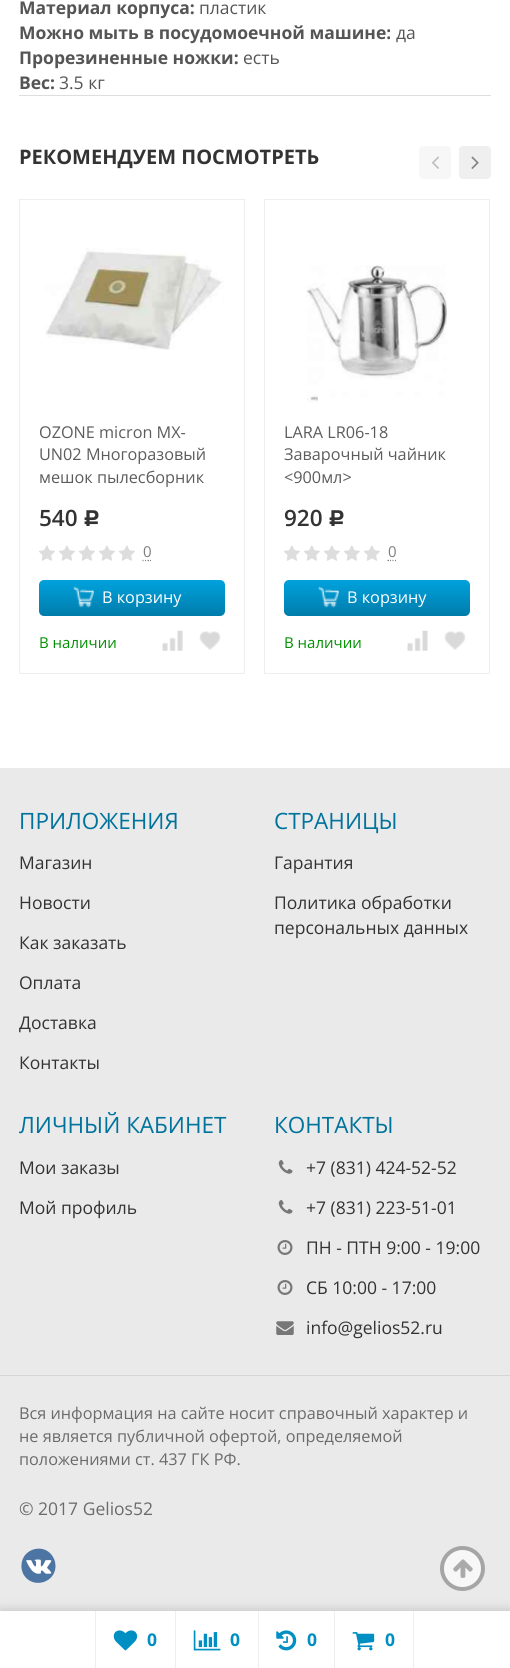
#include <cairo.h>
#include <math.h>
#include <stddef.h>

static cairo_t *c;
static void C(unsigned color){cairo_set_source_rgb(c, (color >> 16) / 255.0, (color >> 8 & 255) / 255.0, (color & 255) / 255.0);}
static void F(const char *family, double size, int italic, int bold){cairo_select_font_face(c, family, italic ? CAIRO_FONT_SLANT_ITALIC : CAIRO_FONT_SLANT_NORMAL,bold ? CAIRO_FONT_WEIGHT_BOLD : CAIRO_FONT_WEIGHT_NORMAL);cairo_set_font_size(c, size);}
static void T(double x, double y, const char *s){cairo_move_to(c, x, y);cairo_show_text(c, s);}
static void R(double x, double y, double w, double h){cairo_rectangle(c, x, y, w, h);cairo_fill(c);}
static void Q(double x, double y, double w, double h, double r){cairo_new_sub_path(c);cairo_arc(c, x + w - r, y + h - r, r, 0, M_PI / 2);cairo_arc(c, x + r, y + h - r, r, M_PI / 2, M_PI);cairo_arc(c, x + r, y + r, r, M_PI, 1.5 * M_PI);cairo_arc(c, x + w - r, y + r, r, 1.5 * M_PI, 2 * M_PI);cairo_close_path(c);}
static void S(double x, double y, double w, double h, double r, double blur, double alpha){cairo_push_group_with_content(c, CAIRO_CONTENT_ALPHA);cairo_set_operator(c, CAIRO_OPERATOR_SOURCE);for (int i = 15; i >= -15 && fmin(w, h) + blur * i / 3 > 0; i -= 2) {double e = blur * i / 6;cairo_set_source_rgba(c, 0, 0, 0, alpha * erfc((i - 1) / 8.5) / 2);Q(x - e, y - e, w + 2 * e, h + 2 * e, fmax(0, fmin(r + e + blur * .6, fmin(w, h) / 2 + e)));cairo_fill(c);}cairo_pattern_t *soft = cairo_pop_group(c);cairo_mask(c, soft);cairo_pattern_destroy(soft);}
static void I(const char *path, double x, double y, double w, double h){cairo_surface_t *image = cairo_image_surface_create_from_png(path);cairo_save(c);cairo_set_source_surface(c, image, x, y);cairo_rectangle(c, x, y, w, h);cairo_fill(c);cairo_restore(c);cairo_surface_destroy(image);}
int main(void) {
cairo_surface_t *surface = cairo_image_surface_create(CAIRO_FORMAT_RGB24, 510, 1668);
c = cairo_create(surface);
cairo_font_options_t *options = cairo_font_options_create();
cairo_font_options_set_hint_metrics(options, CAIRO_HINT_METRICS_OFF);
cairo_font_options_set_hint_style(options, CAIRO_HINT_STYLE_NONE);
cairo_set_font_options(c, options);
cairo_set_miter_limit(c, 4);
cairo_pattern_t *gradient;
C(0xffffff);
cairo_paint(c);
C(0xdedede);
R(19,95,472,1);
F("Open Sans",17.5,0,1);
C(0x555555);
T(19,14,"Материал корпуса:");
F("Open Sans",17.5,0,0);
T(199,14,"пластик");
F("Open Sans",17.5,0,1);
T(19,39,"Можно мыть в посудомоечной машине:");
F("Open Sans",17.5,0,0);
T(396,39,"да");
F("Open Sans",17.5,0,1);
T(19,64,"Прорезиненные ножки:");
F("Open Sans",17.5,0,0);
T(243,64,"есть");
F("Open Sans",17.5,0,1);
T(19,89,"Вес:");
F("Open Sans",17.5,0,0);
T(59,89,"3.5 кг");
F("Open Sans",20,0,1);
C(0x333333);
T(19,164,"РЕКОМЕНДУЕМ ПОСМОТРЕТЬ");
C(0xf7f7f7);
Q(419,146,32,33,4);
cairo_fill(c);
I("1.png",432,156,7,13);
C(0xefefef);
Q(459,146,32,33,4);
cairo_fill(c);
I("2.png",471,156,8,13);
cairo_rectangle(c,19.5,199.5,225,474);
C(0xeeeeee);
cairo_set_line_width(c,1);
cairo_stroke(c);
I("3.png",45,248,179,102);
F("Open Sans",16.25,0,0);
C(0x5c5c5c);
T(39,438,"OZONE micron MX-");
T(39,460,"UN02 Многоразовый");
T(39,483,"мешок пылесборник");
F("Open Sans SemiBold",22.5,0,0);
C(0x333333);
T(39,526,"540");
F("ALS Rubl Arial",22.5,0,1);
T(83,526,"Р");
I("4.png",39,545,16,16);
I("4.png",59,545,16,16);
I("4.png",79,545,16,16);
I("4.png",99,545,16,16);
I("4.png",119,545,16,16);
cairo_new_path(c);
cairo_move_to(c,142.5,560.5);
cairo_line_to(c,143.5,560.5);
cairo_move_to(c,145,560.5);
cairo_line_to(c,146,560.5);
cairo_move_to(c,147.5,560.5);
cairo_line_to(c,149,560.5);
cairo_move_to(c,150,560.5);
cairo_line_to(c,151,560.5);
C(0x7e7e7e);
cairo_set_line_width(c,1.2);
cairo_stroke(c);
F("Open Sans",15,0,0);
T(143,557,"0");
gradient = cairo_pattern_create_linear(132,580,132,616);
cairo_pattern_add_color_stop_rgba(gradient,0,0,0.635,0.867,1);
cairo_pattern_add_color_stop_rgba(gradient,1,0,0.486,0.667,1);
cairo_set_source(c,gradient);
cairo_pattern_destroy(gradient);
Q(39,580,186,36,5);
cairo_fill(c);
I("5.png",73,586,21,22);
F("Open Sans",16.25,0,0);
C(0xffffff);
T(102,603,"В корзину");
I("6.png",162,630,21,21);
I("7.png",199,631,22,19);
F("Open Sans",15,0,0);
C(0x049004);
T(39,648,"В наличии");
cairo_rectangle(c,264.5,199.5,225,474);
C(0xeeeeee);
cairo_set_line_width(c,1);
cairo_stroke(c);
I("8.png",306,265,141,138);
F("Open Sans",16.25,0,0);
C(0x5c5c5c);
T(284,438,"LARA LR06-18");
T(284,460,"Заварочный чайник");
T(284,483,"<900мл>");
F("Open Sans SemiBold",22.5,0,0);
C(0x333333);
T(284,526,"920");
F("ALS Rubl Arial",22.5,0,1);
T(328,526,"Р");
I("4.png",284,545,16,16);
I("4.png",304,545,16,16);
I("4.png",324,545,16,16);
I("4.png",344,545,16,16);
I("4.png",364,545,16,16);
cairo_new_path(c);
cairo_move_to(c,387.5,560.5);
cairo_line_to(c,389,560.5);
cairo_move_to(c,390,560.5);
cairo_line_to(c,391,560.5);
cairo_move_to(c,392.5,560.5);
cairo_line_to(c,393.5,560.5);
cairo_move_to(c,395,560.5);
cairo_line_to(c,396,560.5);
C(0x7e7e7e);
cairo_set_line_width(c,1.2);
cairo_stroke(c);
F("Open Sans",15,0,0);
T(388,557,"0");
gradient = cairo_pattern_create_linear(377,580,377,616);
cairo_pattern_add_color_stop_rgba(gradient,0,0,0.635,0.867,1);
cairo_pattern_add_color_stop_rgba(gradient,1,0,0.486,0.667,1);
cairo_set_source(c,gradient);
cairo_pattern_destroy(gradient);
Q(284,580,186,36,5);
cairo_fill(c);
I("5.png",318,586,21,22);
F("Open Sans",16.25,0,0);
C(0xffffff);
T(347,603,"В корзину");
I("6.png",407,630,21,21);
I("7.png",444,631,22,19);
F("Open Sans",15,0,0);
C(0x049004);
T(284,648,"В наличии");
C(0xeaeaea);
R(0,768,510,843);
F("Open Sans",22.5,0,0);
C(0x00739d);
T(19,829,"ПРИЛОЖЕНИЯ");
F("Open Sans",17.5,0,0);
C(0x333333);
T(19,869,"Магазин");
T(19,909,"Новости");
T(19,949,"Как заказать");
T(19,989,"Оплата");
T(19,1029,"Доставка");
T(19,1069,"Контакты");
F("Open Sans",22.5,0,0);
C(0x00739d);
T(274,829,"СТРАНИЦЫ");
F("Open Sans",17.5,0,0);
C(0x333333);
T(274,869,"Гарантия");
T(274,909,"Политика обработки");
T(274,934,"персональных данных");
F("Open Sans",22.5,0,0);
C(0x00739d);
T(19,1133,"ЛИЧНЫЙ КАБИНЕТ");
F("Open Sans",17.5,0,0);
C(0x333333);
T(19,1174,"Мои заказы");
T(19,1214,"Мой профиль");
F("Open Sans",22.5,0,0);
C(0x00739d);
T(274,1133,"КОНТАКТЫ");
I("9.png",278,1160,15,14);
F("Open Sans",17.5,0,0);
C(0x333333);
T(306,1174,"+7 (831) 424-52-52");
I("9.png",278,1200,15,14);
T(306,1214,"+7 (831) 223-51-01");
I("10.png",277,1240,16,15);
T(306,1254,"ПН - ПТН 9:00 - 19:00");
I("10.png",277,1280,16,15);
T(306,1294,"СБ 10:00 - 17:00");
I("11.png",276,1321,18,14);
T(306,1334,"info@gelios52.ru");
C(0xd5d5d5);
R(0,1375,510,1);
F("Open Sans",16.25,0,0);
C(0x6b6b6b);
T(19,1419,"Вся информация на сайте носит справочный характер и");
T(19,1442,"не является публичной офертой, определяемой");
T(19,1465,"положениями ст. 437 ГК РФ.");
F("Open Sans",17.5,0,0);
T(19,1515,"© 2017 Gelios52");
C(0x4d75a4);
cairo_new_path(c);
cairo_move_to(c,53,1557);
cairo_curve_to(c,55,1560,55.5,1563.5,55.5,1567);
cairo_curve_to(c,54.5,1583.5,32,1589,23.5,1574.5);
cairo_curve_to(c,22,1571.5,21,1568,21.5,1564.5);
cairo_curve_to(c,22.5,1548,45,1542.5,53,1557);
cairo_close_path(c);
cairo_fill(c);
I("12.png",26,1559,26,15);
C(0xf7f7f7);
cairo_arc(c,462.5,1568.5,20.5,0,2 * M_PI);
cairo_fill_preserve(c);
C(0xa5a5a5);
cairo_set_line_width(c,4);
cairo_stroke(c);
I("13.png",453,1559,20,19);
C(0x000000);
S(0,1611,510,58,0,6,.2);
C(0xffffff);
R(0,1611,510,57);
C(0xeeeeee);
R(95,1611,1,57);
I("14.png",113,1630,25,21);
F("Open Sans",17.5,0,1);
C(0x008fc3);
T(147,1646,"0");
C(0xeeeeee);
R(175,1611,1,57);
I("15.png",193,1630,28,21);
C(0x008fc3);
T(230,1646,"0");
C(0xeeeeee);
R(258,1611,1,57);
I("16.png",276,1630,21,21);
C(0x008fc3);
T(307,1646,"0");
C(0xeeeeee);
R(413,1611,1,57);
R(334,1611,1,57);
I("17.png",352,1632,23,19);
C(0x008fc3);
T(385,1646,"0");
cairo_surface_write_to_png(surface, "o.png");
cairo_font_options_destroy(options);
cairo_destroy(c);
cairo_surface_destroy(surface);
return 0;
}
